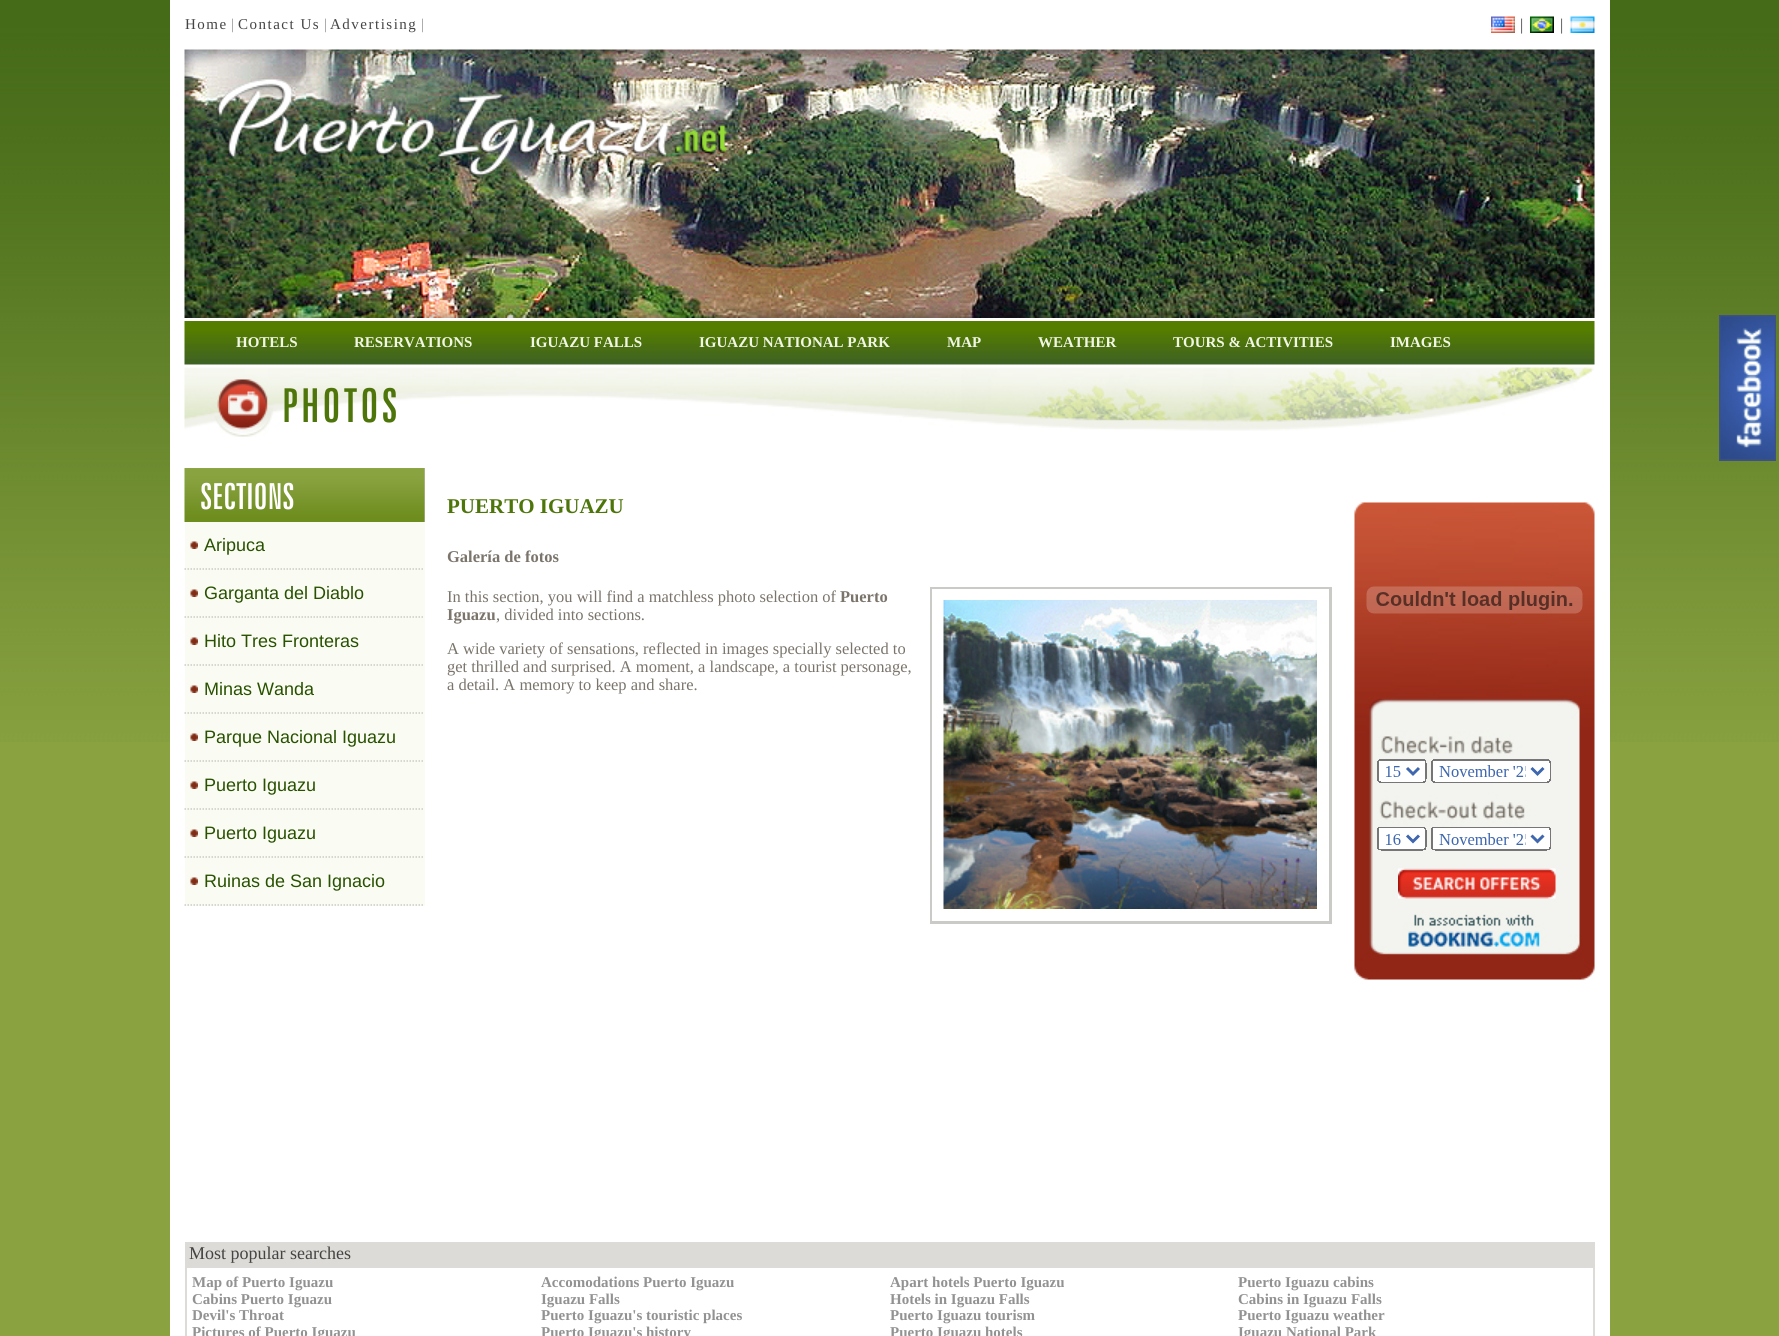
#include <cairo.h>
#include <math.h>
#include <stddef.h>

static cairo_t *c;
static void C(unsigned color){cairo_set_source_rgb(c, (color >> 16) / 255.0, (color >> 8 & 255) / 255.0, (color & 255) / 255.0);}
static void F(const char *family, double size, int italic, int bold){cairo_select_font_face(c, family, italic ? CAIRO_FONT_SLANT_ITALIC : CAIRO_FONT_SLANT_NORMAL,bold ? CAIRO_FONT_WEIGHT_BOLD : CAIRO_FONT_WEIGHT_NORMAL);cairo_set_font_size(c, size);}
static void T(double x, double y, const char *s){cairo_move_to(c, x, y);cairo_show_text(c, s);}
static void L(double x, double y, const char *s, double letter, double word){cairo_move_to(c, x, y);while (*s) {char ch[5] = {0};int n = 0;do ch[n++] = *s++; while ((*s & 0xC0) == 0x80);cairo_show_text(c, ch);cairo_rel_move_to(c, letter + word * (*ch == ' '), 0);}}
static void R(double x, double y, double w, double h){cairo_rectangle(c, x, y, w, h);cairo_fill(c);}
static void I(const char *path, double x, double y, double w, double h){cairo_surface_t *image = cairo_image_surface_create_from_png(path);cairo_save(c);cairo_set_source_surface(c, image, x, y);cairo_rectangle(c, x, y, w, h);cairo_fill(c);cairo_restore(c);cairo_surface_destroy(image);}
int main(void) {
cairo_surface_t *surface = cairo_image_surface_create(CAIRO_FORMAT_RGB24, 1779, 1336);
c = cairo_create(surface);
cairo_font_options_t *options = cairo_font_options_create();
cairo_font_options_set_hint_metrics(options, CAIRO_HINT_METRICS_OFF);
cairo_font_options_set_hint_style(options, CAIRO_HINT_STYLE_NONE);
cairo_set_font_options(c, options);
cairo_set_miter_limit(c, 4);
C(0x8aa240);
cairo_paint(c);
I("1.png",0,0,1779,742);
C(0xffffff);
R(170,0,1440,1336);
F("Liberation Serif",15,0,0);
C(0x444444);
L(185,29,"Home",1.5,0);
C(0x929292);
T(231,29,"|");
C(0x444444);
L(238,29,"Contact Us",1.5,0);
C(0x929292);
T(324,29,"|");
C(0x444444);
L(330,29,"Advertising",1.5,0);
C(0x929292);
T(421,29,"|");
I("2.png",1491,16,24,17);
F("Liberation Serif",16.5,0,0);
C(0x444444);
L(1520,30,"|",1.5,0);
I("3.png",1530,16,24,17);
L(1560,30,"|",1.5,0);
I("4.png",1570,16,25,17);
C(0xf6f6f4);
R(1594,50,1,268);
I("5.png",184,49,1411,269);
I("6.png",216,79,512,99);
I("7.png",184,321,1411,44);
F("Liberation Serif",15,0,1);
C(0xf1f6e4);
T(236,347,"HOTELS");
T(354,347,"RESERVATIONS");
T(530,347,"IGUAZU FALLS");
T(699,347,"IGUAZU NATIONAL PARK");
T(947,347,"MAP");
T(1038,347,"WEATHER");
T(1173,347,"TOURS & ACTIVITIES");
T(1390,347,"IMAGES");
I("8.png",184,367,1410,70);
I("9.png",228,391,32,25);
F("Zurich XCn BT",45,0,0);
C(0x4e750a);
L(282,422,"PHOTOS",3,0);
C(0xc4c0bd);
R(424,468,1,54);
I("10.png",184,468,241,54);
F("Zurich XCn BT",34.5,0,0);
C(0xffffff);
T(200,509,"SECTIONS");
C(0xfafcf4);
R(185,522,240,384);
I("11.png",190,541,8,8);
cairo_new_path(c);
cairo_move_to(c,184.5,569);
cairo_line_to(c,424.5,569);
C(0xcacbc6);
cairo_set_line_width(c,1.5);
cairo_set_dash(c,(double[]){1.5,1.5},2,0);
cairo_stroke(c);
F("Liberation Sans",18,0,0);
C(0x295100);
T(204,551,"Aripuca");
I("11.png",190,589,8,8);
cairo_new_path(c);
cairo_move_to(c,184.5,617);
cairo_line_to(c,424.5,617);
C(0xcacbc6);
cairo_stroke(c);
C(0x295100);
T(204,599,"Garganta del Diablo");
I("11.png",190,637,8,8);
cairo_new_path(c);
cairo_move_to(c,184.5,665);
cairo_line_to(c,424.5,665);
C(0xcacbc6);
cairo_stroke(c);
C(0x295100);
T(204,647,"Hito Tres Fronteras");
I("11.png",190,685,8,8);
cairo_new_path(c);
cairo_move_to(c,184.5,713);
cairo_line_to(c,424.5,713);
C(0xcacbc6);
cairo_stroke(c);
C(0x295100);
T(204,695,"Minas Wanda");
I("11.png",190,733,8,8);
cairo_new_path(c);
cairo_move_to(c,184.5,761);
cairo_line_to(c,424.5,761);
C(0xcacbc6);
cairo_stroke(c);
C(0x295100);
T(204,743,"Parque Nacional Iguazu");
I("11.png",190,781,8,8);
cairo_new_path(c);
cairo_move_to(c,184.5,809);
cairo_line_to(c,424.5,809);
C(0xcacbc6);
cairo_stroke(c);
C(0x295100);
T(204,791,"Puerto Iguazu");
I("11.png",190,829,8,8);
cairo_new_path(c);
cairo_move_to(c,184.5,857);
cairo_line_to(c,424.5,857);
C(0xcacbc6);
cairo_stroke(c);
C(0x295100);
T(204,839,"Puerto Iguazu");
I("11.png",190,877,8,8);
cairo_new_path(c);
cairo_move_to(c,184.5,905);
cairo_line_to(c,424.5,905);
C(0xcacbc6);
cairo_stroke(c);
C(0x295100);
T(204,887,"Ruinas de San Ignacio");
F("Liberation Serif",21,0,1);
C(0x4e750a);
T(447,513,"PUERTO IGUAZU");
F("Liberation Serif",16.5,0,1);
C(0x7a746b);
T(447,562,"Galería de fotos");
F("Liberation Serif",16.5,0,0);
T(447,602,"In this section, you will find a matchless photo selection of");
F("Liberation Serif",16.5,0,1);
T(840,602,"Puerto");
T(447,620,"Iguazu");
F("Liberation Serif",16.5,0,0);
T(496,620,", divided into sections.");
C(0xcacbc6);
R(930,587,402,2);
R(1329,587,3,337);
R(930,921,402,3);
R(930,587,2,337);
I("12.png",943,600,374,309);
C(0x7a746b);
T(447,654,"A wide variety of sensations, reflected in images specially selected to");
T(447,672,"get thrilled and surprised. A moment, a landscape, a tourist personage,");
T(447,690,"a detail. A memory to keep and share.");
I("13.png",1354,502,241,478);
I("14.png",1366,586,217,28);
I("15.png",1377,759,179,140);
cairo_rectangle(c,186,1131,1408,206);
C(0xdcdbd7);
cairo_set_line_width(c,2);
cairo_set_dash(c,NULL,0,0);
cairo_stroke(c);
C(0xffffff);
R(185,1130,1410,112);
C(0xdcdbd7);
R(187,1242,1406,26);
F("Liberation Serif",18,0,0);
C(0x444444);
T(189,1259,"Most popular searches");
F("Liberation Serif",15,0,1);
C(0x929292);
T(192,1287,"Map of Puerto Iguazu");
T(541,1287,"Accomodations Puerto Iguazu");
T(890,1287,"Apart hotels Puerto Iguazu");
T(1238,1287,"Puerto Iguazu cabins");
T(192,1304,"Cabins Puerto Iguazu");
T(541,1304,"Iguazu Falls");
T(890,1304,"Hotels in Iguazu Falls");
T(1238,1304,"Cabins in Iguazu Falls");
T(192,1320,"Devil's Throat");
T(541,1320,"Puerto Iguazu's touristic places");
T(890,1320,"Puerto Iguazu tourism");
T(1238,1320,"Puerto Iguazu weather");
T(192,1337,"Pictures of Puerto Iguazu");
T(541,1337,"Puerto Iguazu's history");
T(890,1337,"Puerto Iguazu hotels");
T(1238,1337,"Iguazu National Park");
I("16.png",1719,315,57,146);
cairo_surface_write_to_png(surface, "o.png");
cairo_font_options_destroy(options);
cairo_destroy(c);
cairo_surface_destroy(surface);
return 0;
}
